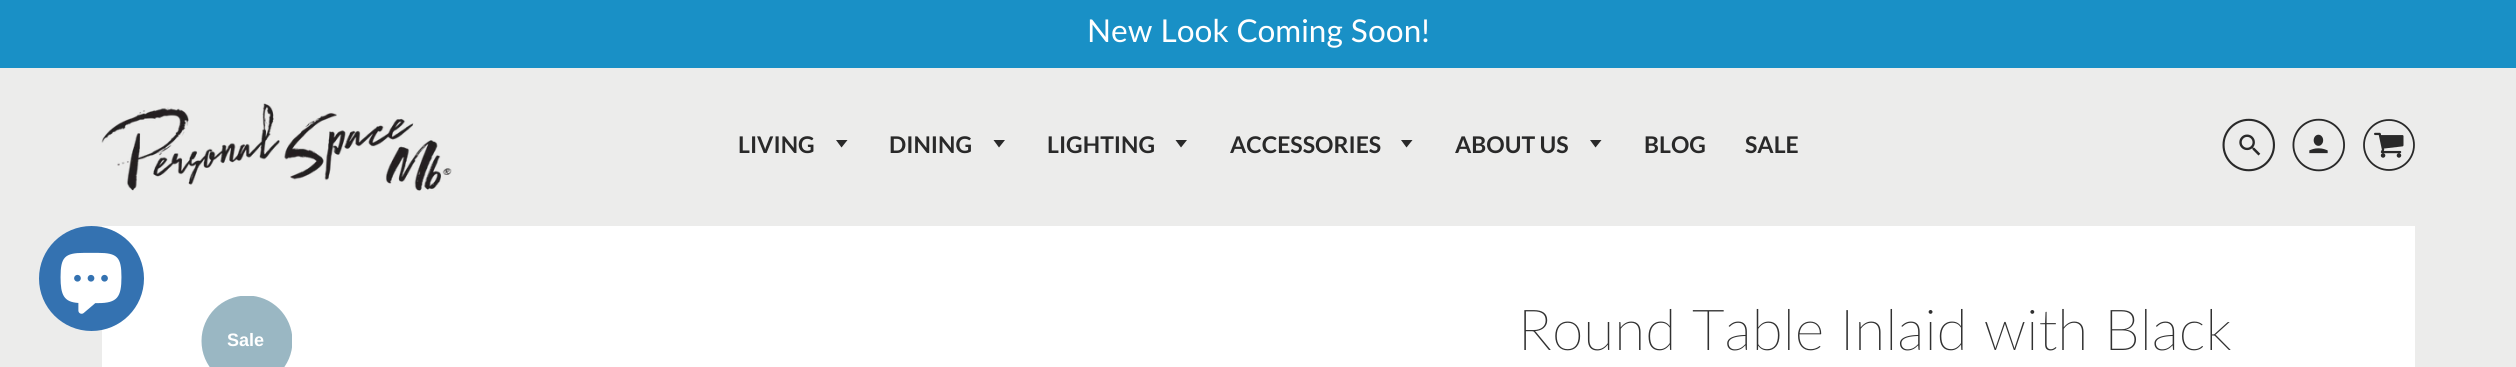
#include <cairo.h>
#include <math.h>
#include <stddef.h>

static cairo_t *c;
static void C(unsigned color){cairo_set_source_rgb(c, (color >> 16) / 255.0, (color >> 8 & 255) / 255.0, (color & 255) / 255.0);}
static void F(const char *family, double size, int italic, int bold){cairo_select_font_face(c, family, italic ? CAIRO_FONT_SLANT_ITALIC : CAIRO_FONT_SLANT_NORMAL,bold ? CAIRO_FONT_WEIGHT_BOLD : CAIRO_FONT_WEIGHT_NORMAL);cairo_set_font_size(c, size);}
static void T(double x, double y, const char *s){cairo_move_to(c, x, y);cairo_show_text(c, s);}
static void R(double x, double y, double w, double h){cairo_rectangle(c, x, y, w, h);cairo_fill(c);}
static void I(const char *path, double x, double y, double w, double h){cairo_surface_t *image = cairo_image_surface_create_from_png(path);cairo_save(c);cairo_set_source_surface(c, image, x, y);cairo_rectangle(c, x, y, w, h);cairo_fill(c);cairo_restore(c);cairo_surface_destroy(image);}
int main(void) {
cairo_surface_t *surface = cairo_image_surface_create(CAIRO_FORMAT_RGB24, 2516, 367);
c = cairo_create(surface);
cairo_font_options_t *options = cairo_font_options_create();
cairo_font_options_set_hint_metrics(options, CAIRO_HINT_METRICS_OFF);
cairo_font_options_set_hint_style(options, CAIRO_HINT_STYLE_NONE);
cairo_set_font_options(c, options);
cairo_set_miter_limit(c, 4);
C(0xececeb);
cairo_paint(c);
C(0x1990c6);
R(0,0,2516,68);
F("Lato",31.5,0,0);
C(0xffffff);
T(1087,42,"New Look Coming Soon!");
I("1.png",101,103,351,88);
F("Lato",23,0,1);
C(0x292929);
T(738,153,"LIVING");
cairo_new_path(c);
cairo_move_to(c,836,140);
cairo_line_to(c,841.5,147.5);
cairo_line_to(c,847.5,140);
cairo_close_path(c);
cairo_fill(c);
T(889,153,"DINING");
cairo_new_path(c);
cairo_move_to(c,993.5,140);
cairo_line_to(c,999,147.5);
cairo_line_to(c,1005,140);
cairo_close_path(c);
cairo_fill(c);
T(1047,153,"LIGHTING");
cairo_new_path(c);
cairo_move_to(c,1175.5,140);
cairo_line_to(c,1181,147.5);
cairo_line_to(c,1187,140);
cairo_close_path(c);
cairo_fill(c);
T(1230,153,"ACCESSORIES");
cairo_new_path(c);
cairo_move_to(c,1401,140);
cairo_line_to(c,1406.5,147.5);
cairo_line_to(c,1412.5,140);
cairo_close_path(c);
cairo_fill(c);
T(1455,153,"ABOUT US");
cairo_new_path(c);
cairo_move_to(c,1590,140);
cairo_line_to(c,1595.5,147.5);
cairo_line_to(c,1601.5,140);
cairo_close_path(c);
cairo_fill(c);
T(1644,153,"BLOG");
T(1745,153,"SALE");
I("2.png",2222,118,53,54);
I("3.png",2292,118,53,54);
I("4.png",2363,119,52,52);
C(0xffffff);
R(102,226,2313,141);
C(0x3472b1);
cairo_arc(c,91.5,278.5,52.5,0,2 * M_PI);
cairo_fill(c);
I("5.png",60,252,62,62);
cairo_save(c);
cairo_rectangle(c,201,296,91,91);
cairo_clip(c);
C(0x9ab7c3);
cairo_arc(c,247,341,45.5,0,2 * M_PI);
cairo_fill(c);
cairo_restore(c);
F("Liberation Sans",18,0,1);
C(0xffffff);
T(227,346,"Sale");
F("Lato Light",56.75,0,0);
C(0x313131);
T(1518,350,"Round Table Inlaid with Black");
cairo_surface_write_to_png(surface, "o.png");
cairo_font_options_destroy(options);
cairo_destroy(c);
cairo_surface_destroy(surface);
return 0;
}
